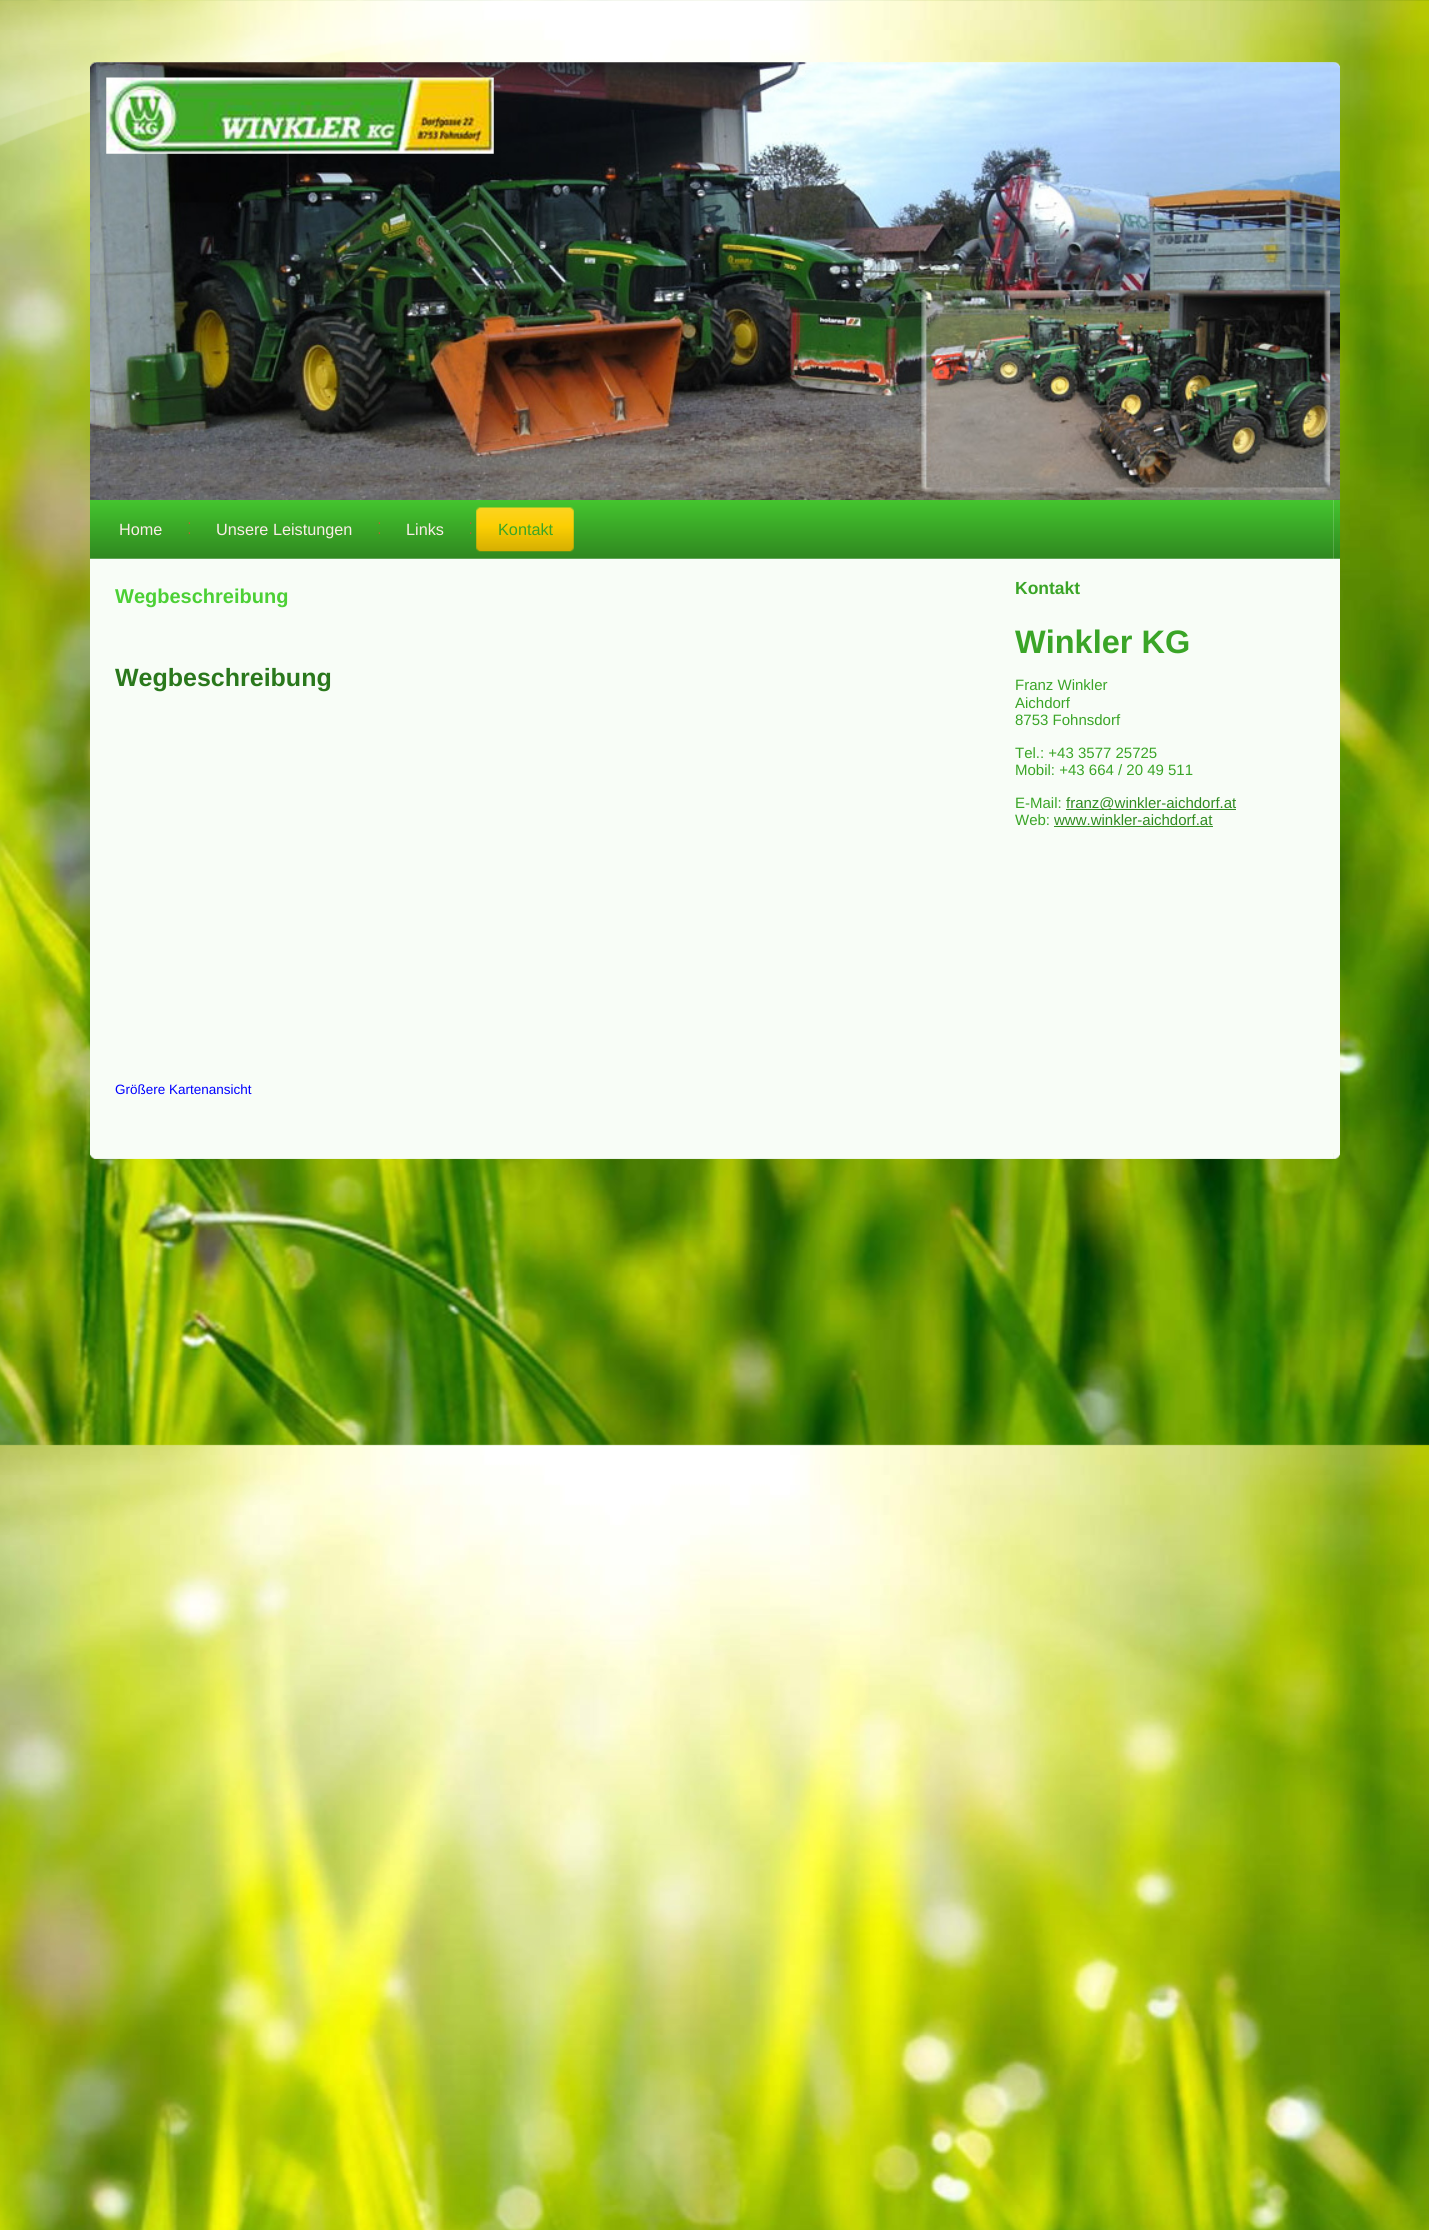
#include <cairo.h>
#include <math.h>
#include <stddef.h>

static cairo_t *c;
static void C(unsigned color){cairo_set_source_rgb(c, (color >> 16) / 255.0, (color >> 8 & 255) / 255.0, (color & 255) / 255.0);}
static void F(const char *family, double size, int italic, int bold){cairo_select_font_face(c, family, italic ? CAIRO_FONT_SLANT_ITALIC : CAIRO_FONT_SLANT_NORMAL,bold ? CAIRO_FONT_WEIGHT_BOLD : CAIRO_FONT_WEIGHT_NORMAL);cairo_set_font_size(c, size);}
static void T(double x, double y, const char *s){cairo_move_to(c, x, y);cairo_show_text(c, s);}
static void R(double x, double y, double w, double h){cairo_rectangle(c, x, y, w, h);cairo_fill(c);}
static void I(const char *path, double x, double y, double w, double h){cairo_surface_t *image = cairo_image_surface_create_from_png(path);cairo_save(c);cairo_set_source_surface(c, image, x, y);cairo_rectangle(c, x, y, w, h);cairo_fill(c);cairo_restore(c);cairo_surface_destroy(image);}
int main(void) {
cairo_surface_t *surface = cairo_image_surface_create(CAIRO_FORMAT_RGB24, 1429, 2230);
c = cairo_create(surface);
cairo_font_options_t *options = cairo_font_options_create();
cairo_font_options_set_hint_metrics(options, CAIRO_HINT_METRICS_OFF);
cairo_font_options_set_hint_style(options, CAIRO_HINT_STYLE_NONE);
cairo_set_font_options(c, options);
cairo_set_miter_limit(c, 4);
C(0xffffff);
cairo_paint(c);
I("1.png",0,0,1429,2230);
I("2.png",0,0,907,146);
I("3.png",90,62,1244,1097);
I("4.png",90,62,1244,6);
C(0xf8fdf7);
R(90,68,1250,1085);
I("5.png",1333,62,7,1097);
I("6.png",1333,62,7,6);
I("7.png",90,62,1250,438);
I("8.png",96,62,1238,438);
I("9.png",106,77,388,77);
I("10.png",90,500,1244,59);
I("11.png",1333,500,7,59);
F("Liberation Sans",16.25,0,0);
C(0xfcece9);
T(119,535,"Home");
I("12.png",188,522,2,12);
T(216,535,"Unsere Leistungen");
I("12.png",378,522,2,12);
T(406,535,"Links");
I("13.png",470,522,2,12);
I("14.png",476,507,94,45);
I("15.png",570,507,4,45);
C(0x3aa527);
T(498,535,"Kontakt");
F("Liberation Sans",20,0,1);
C(0x4cd035);
T(115,603,"Wegbeschreibung");
F("Liberation Sans",25,0,1);
C(0x2a781c);
T(115,686,"Wegbeschreibung");
F("Liberation Sans",13.5,0,0);
C(0x0000ff);
T(115,1094,"Größere Kartenansicht");
F("Liberation Sans",17.5,0,1);
C(0x3aa527);
T(1015,594,"Kontakt");
F("Liberation Sans",32.5,0,1);
T(1015,653,"Winkler KG");
F("Liberation Sans",15,0,0);
T(1015,690,"Franz Winkler");
T(1015,708,"Aichdorf");
T(1015,725,"8753 Fohnsdorf");
T(1015,758,"Tel.: +43 3577 25725");
T(1015,775,"Mobil: +43 664 / 20 49 511");
T(1015,808,"E-Mail:");
C(0x318c21);
R(1066,809,170,1);
T(1066,808,"franz@winkler-aichdorf.at");
C(0x3aa527);
T(1015,825,"Web:");
C(0x318c21);
T(1054,825,"www.winkler-aichdorf.at");
R(1054,826,159,1);
I("16.png",90,1153,1244,6);
I("17.png",1333,1153,7,6);
cairo_surface_write_to_png(surface, "o.png");
cairo_font_options_destroy(options);
cairo_destroy(c);
cairo_surface_destroy(surface);
return 0;
}
